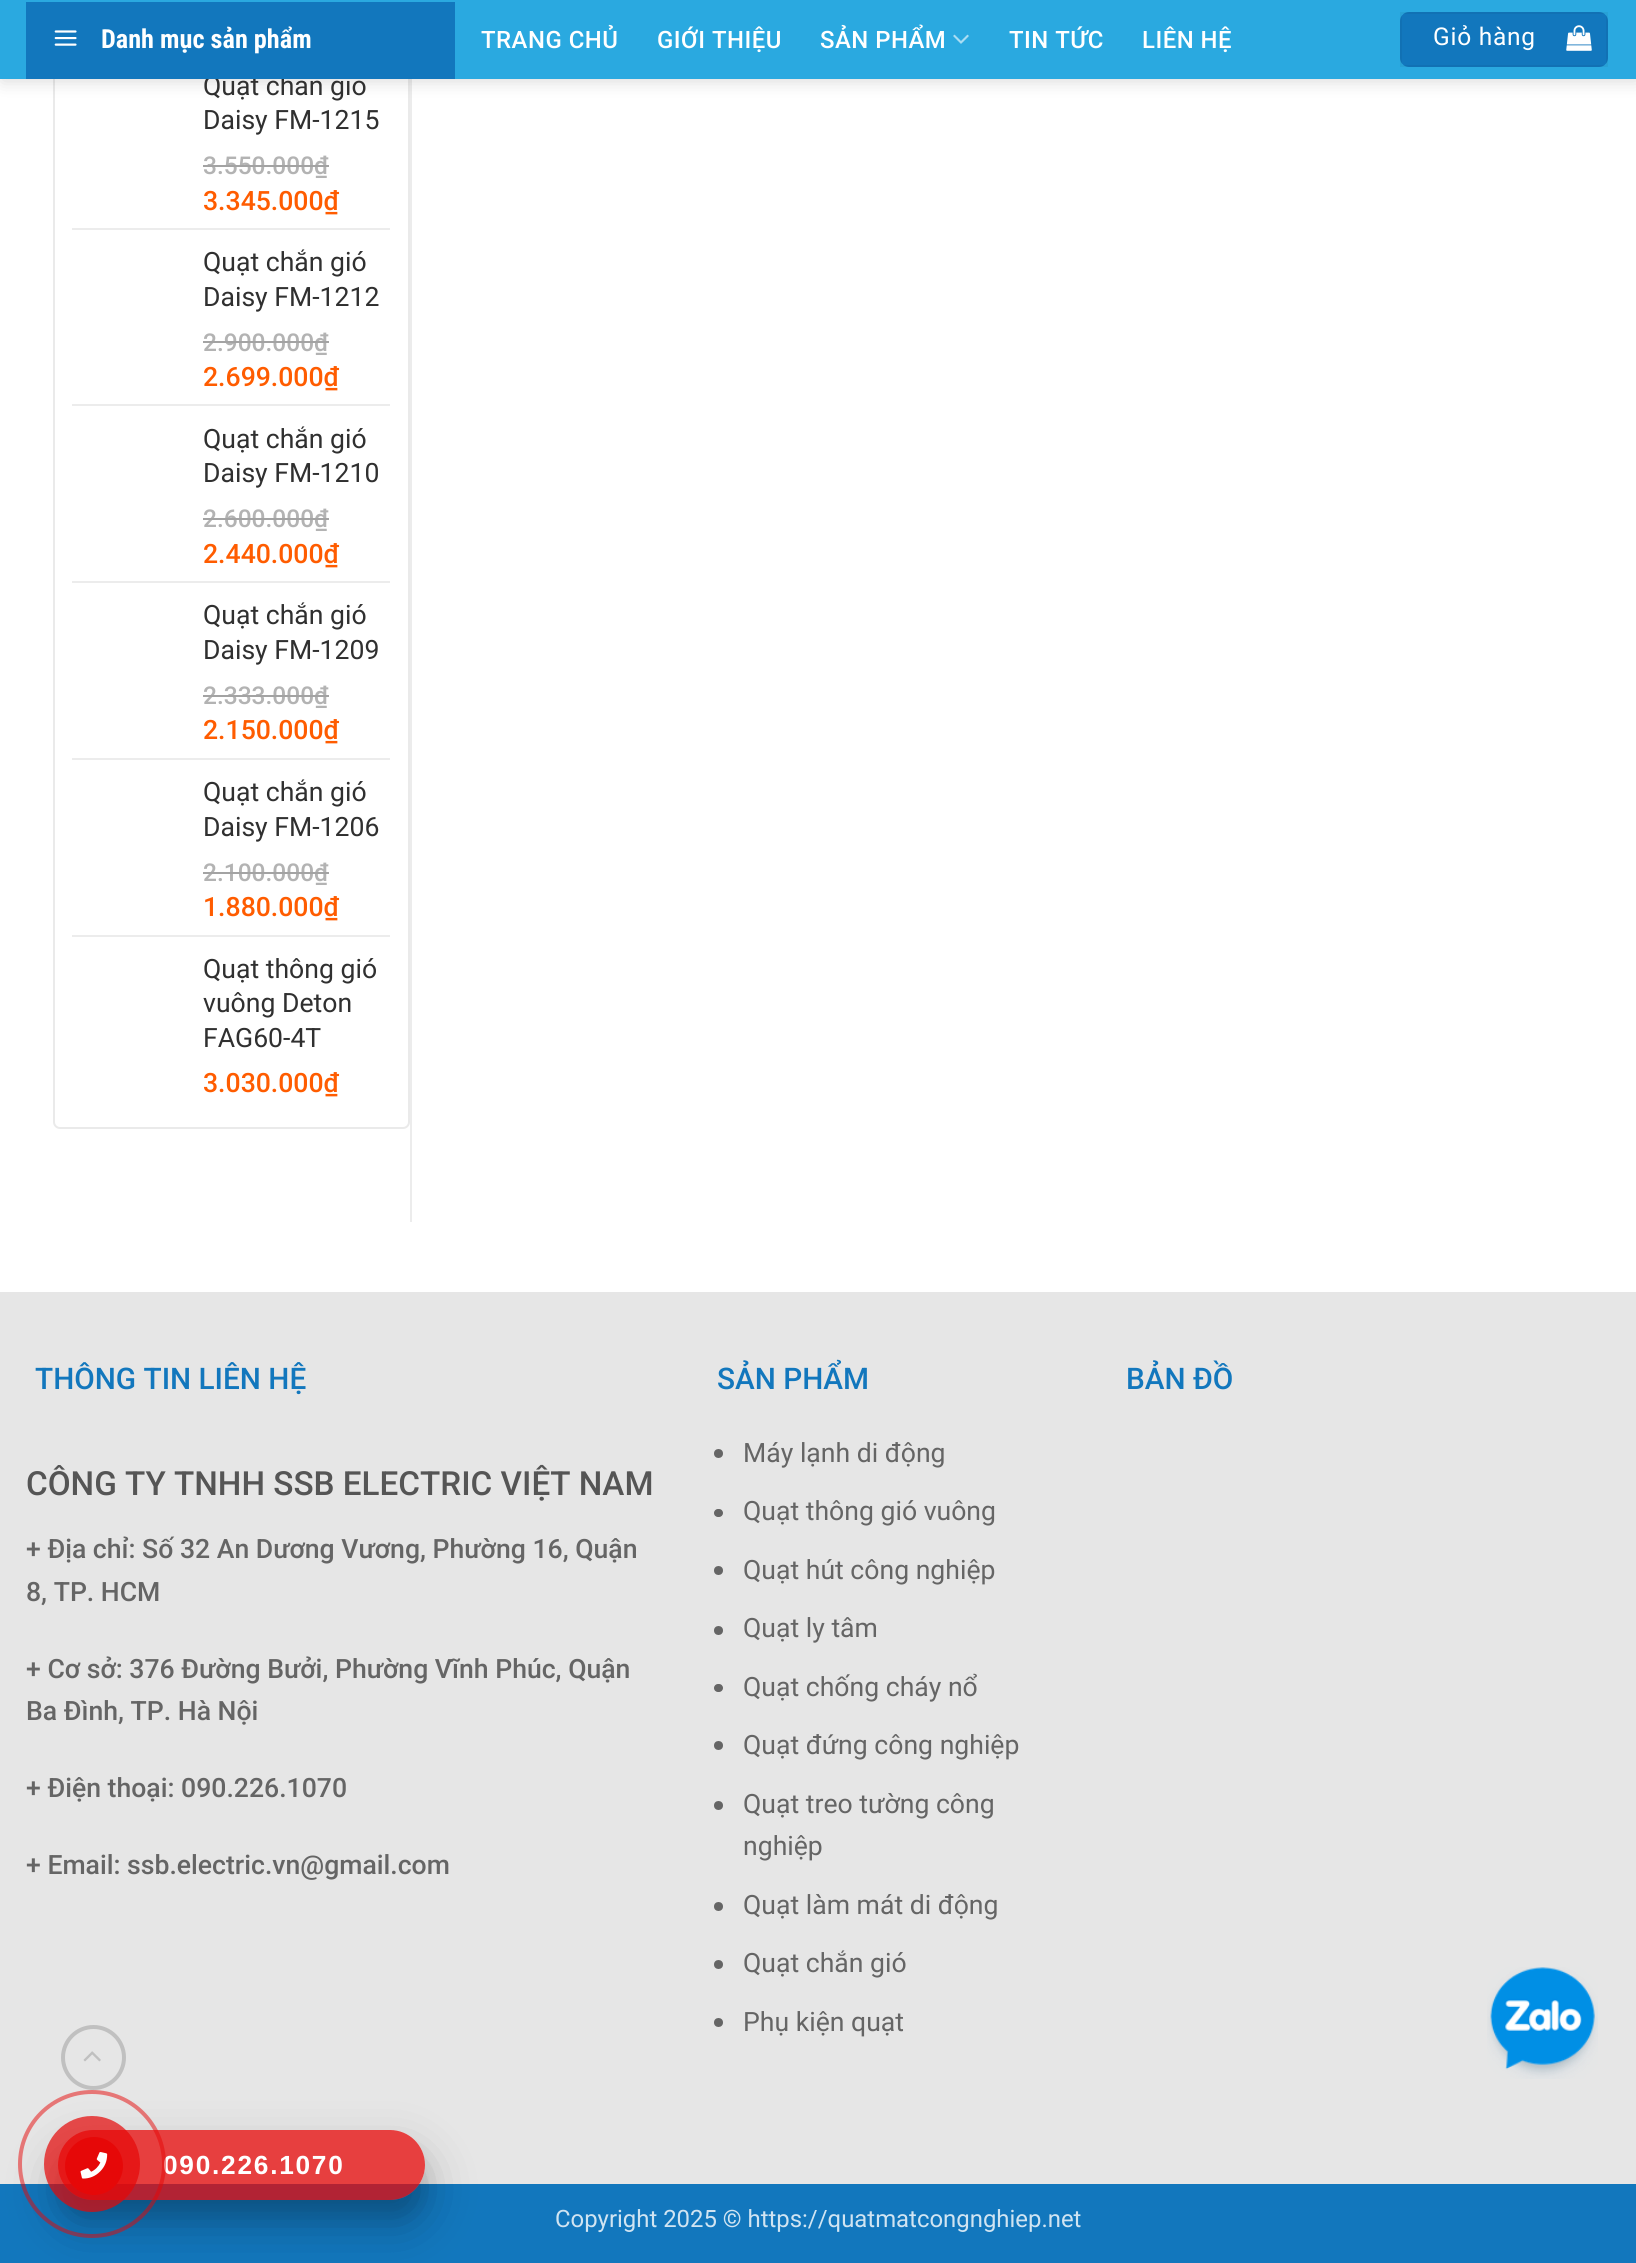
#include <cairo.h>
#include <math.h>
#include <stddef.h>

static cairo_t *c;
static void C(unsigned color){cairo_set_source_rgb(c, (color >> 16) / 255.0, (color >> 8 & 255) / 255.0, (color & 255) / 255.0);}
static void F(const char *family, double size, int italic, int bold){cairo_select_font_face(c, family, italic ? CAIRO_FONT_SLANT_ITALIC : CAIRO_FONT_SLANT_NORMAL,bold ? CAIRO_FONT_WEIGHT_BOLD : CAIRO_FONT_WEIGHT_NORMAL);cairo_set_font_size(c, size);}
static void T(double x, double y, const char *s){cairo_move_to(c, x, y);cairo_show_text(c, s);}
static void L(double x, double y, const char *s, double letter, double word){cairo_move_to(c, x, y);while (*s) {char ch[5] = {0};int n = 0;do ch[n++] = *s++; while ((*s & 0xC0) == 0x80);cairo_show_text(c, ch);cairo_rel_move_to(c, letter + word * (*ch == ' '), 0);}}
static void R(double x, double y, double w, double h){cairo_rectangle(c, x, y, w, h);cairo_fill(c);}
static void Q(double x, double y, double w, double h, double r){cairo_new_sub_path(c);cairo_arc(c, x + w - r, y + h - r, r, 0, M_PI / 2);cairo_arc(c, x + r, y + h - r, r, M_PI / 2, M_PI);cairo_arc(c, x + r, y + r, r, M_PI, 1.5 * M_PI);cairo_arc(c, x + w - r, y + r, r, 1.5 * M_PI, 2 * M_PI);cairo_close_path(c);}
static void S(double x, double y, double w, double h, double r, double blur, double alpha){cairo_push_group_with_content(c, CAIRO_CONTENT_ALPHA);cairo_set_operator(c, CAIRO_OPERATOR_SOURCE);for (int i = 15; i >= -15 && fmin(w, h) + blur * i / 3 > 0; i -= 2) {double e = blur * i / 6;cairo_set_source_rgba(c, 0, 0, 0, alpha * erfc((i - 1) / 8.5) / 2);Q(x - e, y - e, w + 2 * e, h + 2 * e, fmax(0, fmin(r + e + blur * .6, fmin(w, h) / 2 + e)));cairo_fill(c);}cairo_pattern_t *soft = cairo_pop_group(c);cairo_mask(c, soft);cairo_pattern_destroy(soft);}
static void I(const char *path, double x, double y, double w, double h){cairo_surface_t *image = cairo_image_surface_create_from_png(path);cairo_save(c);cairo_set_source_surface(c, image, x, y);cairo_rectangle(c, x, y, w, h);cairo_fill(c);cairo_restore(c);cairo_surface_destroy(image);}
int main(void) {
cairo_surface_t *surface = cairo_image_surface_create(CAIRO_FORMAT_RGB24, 1636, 2263);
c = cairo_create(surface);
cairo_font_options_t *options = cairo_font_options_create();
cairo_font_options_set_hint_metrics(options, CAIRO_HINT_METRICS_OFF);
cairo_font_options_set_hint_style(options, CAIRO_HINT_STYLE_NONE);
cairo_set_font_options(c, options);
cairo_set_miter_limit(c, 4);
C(0xffffff);
cairo_paint(c);
Q(54,-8,355,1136,6);
C(0xeaeaea);
cairo_stroke(c);
C(0xececec);
R(410,79,2,1143);
C(0x000000);
S(2,2,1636,79,0,9,.15);
F("Roboto",26.6,0,0);
C(0x303030);
T(203,95,"Quạt chắn gió");
C(0x2aa9e0);
R(0,0,1636,79);
C(0x1277bd);
R(26,2,429,77);
I("1.png",54,30,23,16);
F("Roboto Condensed",26.25,0,1);
C(0xffffff);
T(101,48,"Danh mục sản phẩm");
F("Roboto Medium",23.9,0,0);
L(481,48,"TRANG CHỦ",.5,0);
L(657,48,"GIỚI THIỆU",.5,0);
L(820,48,"SẢN PHẨM",.5,0);
I("2.png",953,34,16,10);
L(1009,48,"TIN TỨC",.5,0);
L(1142,48,"LIÊN HỆ",.5,0);
C(0x1277bd);
Q(1400,12,208,55,9);
cairo_fill(c);
cairo_rectangle(c,1401,13,206,53);
cairo_set_source_rgba(c,0,0,0,0.05);
cairo_stroke(c);
F("Roboto",24.5,0,0);
C(0xffffff);
L(1433,45,"Giỏ hàng",.75,0);
I("3.png",1566,25,26,26);
F("Roboto",26.6,0,0);
C(0x303030);
T(203,129,"Daisy FM-1215");
F("Roboto Medium",24.5,0,0);
C(0xb3b3b3);
T(203,174,"3.550.000₫");
C(0xa3a3a3);
R(203,165,126,2);
F("Roboto Medium",26.6,0,0);
C(0xff5c00);
T(203,210,"3.345.000₫");
C(0xececec);
R(72,228,318,2);
F("Roboto",26.6,0,0);
C(0x303030);
T(203,271,"Quạt chắn gió");
T(203,306,"Daisy FM-1212");
F("Roboto Medium",24.5,0,0);
C(0xb3b3b3);
T(203,351,"2.900.000₫");
C(0xa3a3a3);
R(203,341,126,2);
F("Roboto Medium",26.6,0,0);
C(0xff5c00);
T(203,386,"2.699.000₫");
C(0xececec);
R(72,404,318,2);
F("Roboto",26.6,0,0);
C(0x303030);
T(203,448,"Quạt chắn gió");
T(203,482,"Daisy FM-1210");
F("Roboto Medium",24.5,0,0);
C(0xb3b3b3);
T(203,527,"2.600.000₫");
C(0xa3a3a3);
R(203,518,126,2);
F("Roboto Medium",26.6,0,0);
C(0xff5c00);
T(203,563,"2.440.000₫");
C(0xececec);
R(72,581,318,2);
F("Roboto",26.6,0,0);
C(0x303030);
T(203,624,"Quạt chắn gió");
T(203,659,"Daisy FM-1209");
F("Roboto Medium",24.5,0,0);
C(0xb3b3b3);
T(203,704,"2.333.000₫");
C(0xa3a3a3);
R(203,695,126,2);
F("Roboto Medium",26.6,0,0);
C(0xff5c00);
T(203,739,"2.150.000₫");
C(0xececec);
R(72,758,318,2);
F("Roboto",26.6,0,0);
C(0x303030);
T(203,801,"Quạt chắn gió");
T(203,836,"Daisy FM-1206");
F("Roboto Medium",24.5,0,0);
C(0xb3b3b3);
T(203,881,"2.100.000₫");
C(0xa3a3a3);
R(203,872,126,2);
F("Roboto Medium",26.6,0,0);
C(0xff5c00);
T(203,916,"1.880.000₫");
C(0xececec);
R(72,935,318,2);
F("Roboto",26.6,0,0);
C(0x303030);
T(203,978,"Quạt thông gió");
T(203,1012,"vuông Deton");
T(203,1047,"FAG60-4T");
F("Roboto Medium",26.6,0,0);
C(0xff5c00);
T(203,1092,"3.030.000₫");
C(0xe6e6e6);
R(0,1292,1636,892);
F("Roboto Medium",29.75,0,0);
C(0x1277bd);
T(35,1389,"THÔNG TIN LIÊN HỆ");
F("Roboto Medium",33.25,0,0);
C(0x555555);
T(26,1495,"CÔNG TY TNHH SSB ELECTRIC VIỆT NAM");
F("Roboto Medium",26.6,0,0);
C(0x656565);
T(26,1558,"+ Địa chỉ: Số 32 An Dương Vương, Phường 16, Quận");
T(26,1601,"8, TP. HCM");
T(26,1678,"+ Cơ sở: 376 Đường Bưởi, Phường Vĩnh Phúc, Quận");
T(26,1720,"Ba Đình, TP. Hà Nội");
T(26,1797,"+ Điện thoại: 090.226.1070");
T(26,1874,"+ Email: ssb.electric.vn@gmail.com");
F("Roboto Medium",29.75,0,0);
C(0x1277bd);
T(717,1389,"SẢN PHẨM");
C(0x656565);
cairo_new_path(c);
cairo_arc(c,718.5,1453.5,4.5,0,2 * M_PI);
cairo_fill(c);
F("Roboto",26.6,0,0);
T(743,1462,"Máy lạnh di động");
Q(714,1509,9,8,4);
cairo_fill(c);
T(743,1520,"Quạt thông gió vuông");
cairo_new_path(c);
cairo_arc(c,718.5,1570.5,4.5,0,2 * M_PI);
cairo_fill(c);
T(743,1579,"Quạt hút công nghiệp");
cairo_new_path(c);
cairo_arc(c,718.5,1630.5,4.5,0,2 * M_PI);
cairo_fill(c);
T(743,1637,"Quạt ly tâm");
Q(714,1684,9,8,4);
cairo_fill(c);
T(743,1696,"Quạt chống cháy nổ");
cairo_new_path(c);
cairo_arc(c,718.5,1745.5,4.5,0,2 * M_PI);
cairo_fill(c);
T(743,1754,"Quạt đứng công nghiệp");
cairo_new_path(c);
cairo_arc(c,718.5,1805.5,4.5,0,2 * M_PI);
cairo_fill(c);
T(743,1813,"Quạt treo tường công");
T(743,1855,"nghiệp");
cairo_new_path(c);
cairo_arc(c,718.5,1906.5,4.5,0,2 * M_PI);
cairo_fill(c);
T(743,1914,"Quạt làm mát di động");
cairo_new_path(c);
cairo_arc(c,718.5,1964.5,4.5,0,2 * M_PI);
cairo_fill(c);
T(743,1972,"Quạt chắn gió");
cairo_new_path(c);
cairo_arc(c,718.5,2022.5,4.5,0,2 * M_PI);
cairo_fill(c);
T(743,2031,"Phụ kiện quạt");
F("Roboto Medium",29.75,0,0);
C(0x1277bd);
T(1126,1389,"BẢN ĐỒ");
cairo_new_path(c);
cairo_arc(c,93.5,2057.5,30.5,0,2 * M_PI);
C(0xc0c0c0);
cairo_set_line_width(c,4);
cairo_stroke(c);
I("4.png",83,2051,18,11);
C(0x1277bd);
R(0,2184,1636,79);
F("Roboto",23.9,0,0);
C(0xd0e4f2);
T(555,2227,"Copyright 2025 © https://quatmatcongnghiep.net");
I("5.png",1487,1967,111,112);
cairo_save(c);
cairo_set_fill_rule(c,CAIRO_FILL_RULE_EVEN_ODD);
cairo_new_path(c);
cairo_move_to(c,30,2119);
cairo_line_to(c,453,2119);
cairo_line_to(c,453,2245);
cairo_line_to(c,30,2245);
cairo_close_path(c);
cairo_move_to(c,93,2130);
cairo_line_to(c,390,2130);
cairo_curve_to(c,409.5,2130,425,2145.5,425,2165);
cairo_curve_to(c,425,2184.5,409.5,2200,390,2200);
cairo_line_to(c,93,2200);
cairo_curve_to(c,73.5,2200,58,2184.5,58,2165);
cairo_curve_to(c,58,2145.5,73.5,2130,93,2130);
cairo_close_path(c);
cairo_clip(c);
C(0x000000);
S(58,2147,367,70,35,9,.1);
cairo_restore(c);
cairo_save(c);
cairo_set_fill_rule(c,CAIRO_FILL_RULE_EVEN_ODD);
cairo_new_path(c);
cairo_move_to(c,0,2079);
cairo_line_to(c,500,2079);
cairo_line_to(c,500,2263);
cairo_line_to(c,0,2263);
cairo_close_path(c);
cairo_move_to(c,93,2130);
cairo_line_to(c,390,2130);
cairo_curve_to(c,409.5,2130,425,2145.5,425,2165);
cairo_curve_to(c,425,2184.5,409.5,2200,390,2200);
cairo_line_to(c,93,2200);
cairo_curve_to(c,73.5,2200,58,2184.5,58,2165);
cairo_curve_to(c,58,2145.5,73.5,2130,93,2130);
cairo_close_path(c);
cairo_clip(c);
C(0x000000);
S(58,2154,367,70,35,24.5,.25);
cairo_restore(c);
cairo_set_source_rgba(c,0.902,0.031,0.031,0.75);
Q(58,2130,367,70,35);
cairo_fill(c);
F("Liberation Sans",26.25,0,1);
C(0xffffff);
L(163,2174,"090.226.1070",1.75,0);
cairo_new_path(c);
cairo_arc(c,92,2164,72,0,2 * M_PI);
cairo_set_source_rgba(c,0.902,0.031,0.031,0.5);
cairo_stroke(c);
cairo_set_source_rgba(c,0.902,0.031,0.031,0.7);
cairo_arc(c,92,2164,48,0,2 * M_PI);
cairo_fill(c);
C(0xe60808);
cairo_arc(c,94,2166,29,0,2 * M_PI);
cairo_fill(c);
I("6.png",80,2152,28,27);
cairo_surface_write_to_png(surface, "o.png");
cairo_font_options_destroy(options);
cairo_destroy(c);
cairo_surface_destroy(surface);
return 0;
}
